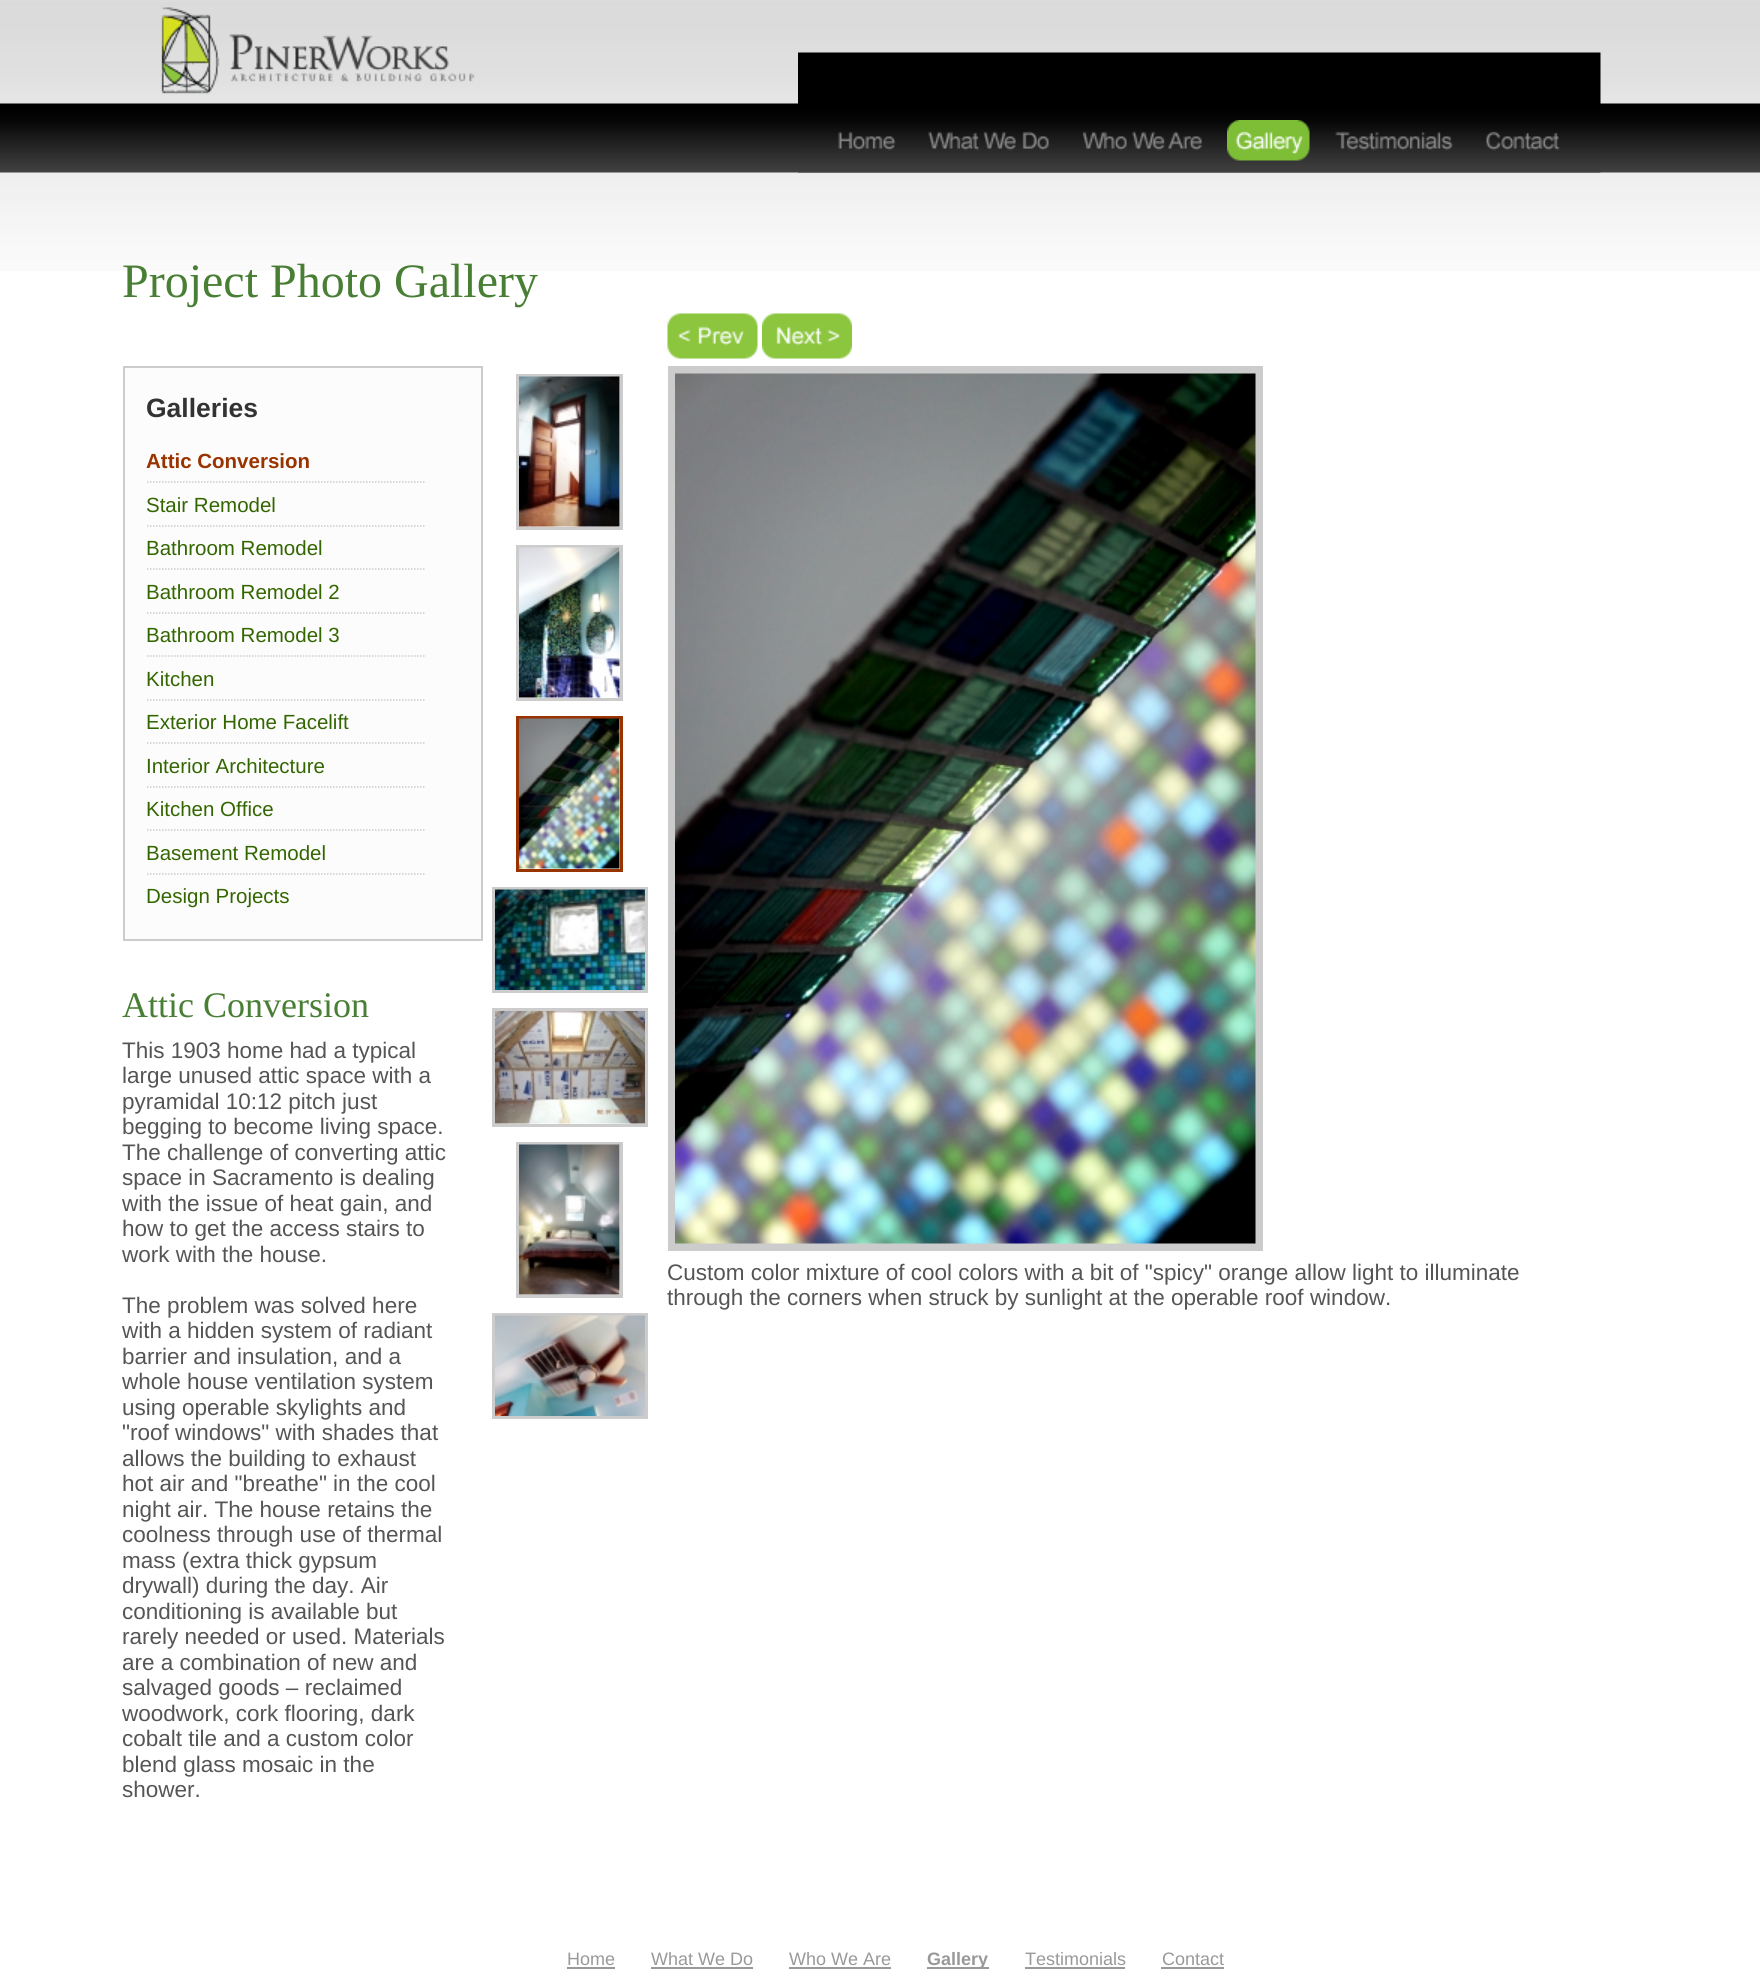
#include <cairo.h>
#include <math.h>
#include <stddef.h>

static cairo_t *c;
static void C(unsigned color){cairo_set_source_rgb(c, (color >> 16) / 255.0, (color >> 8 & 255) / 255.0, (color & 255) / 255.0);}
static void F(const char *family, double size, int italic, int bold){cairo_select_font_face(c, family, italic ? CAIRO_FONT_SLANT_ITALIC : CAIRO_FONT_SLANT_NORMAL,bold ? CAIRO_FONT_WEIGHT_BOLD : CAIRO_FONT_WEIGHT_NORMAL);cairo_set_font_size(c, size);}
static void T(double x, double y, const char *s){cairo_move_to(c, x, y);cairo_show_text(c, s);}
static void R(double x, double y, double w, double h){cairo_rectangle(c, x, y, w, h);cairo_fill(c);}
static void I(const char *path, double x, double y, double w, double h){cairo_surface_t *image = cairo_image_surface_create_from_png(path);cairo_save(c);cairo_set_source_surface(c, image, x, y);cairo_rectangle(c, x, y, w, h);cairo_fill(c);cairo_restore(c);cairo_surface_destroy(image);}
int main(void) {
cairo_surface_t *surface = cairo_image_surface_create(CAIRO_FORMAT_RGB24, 1760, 1985);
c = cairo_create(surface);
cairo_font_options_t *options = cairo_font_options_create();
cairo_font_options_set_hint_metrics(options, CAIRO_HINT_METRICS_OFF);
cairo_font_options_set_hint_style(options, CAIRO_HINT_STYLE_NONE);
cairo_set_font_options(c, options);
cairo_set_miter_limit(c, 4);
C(0xffffff);
cairo_paint(c);
I("1.png",0,0,1760,271);
I("2.png",161,7,314,87);
I("10.png",0,103,1760,70);
I("3.png",798,52,803,121);
I("4.png",838,131,58,20);
I("5.png",928,131,121,20);
I("6.png",1082,131,120,20);
I("7.png",1227,120,83,41);
I("8.png",1335,131,118,20);
I("9.png",1486,131,74,20);
F("Liberation Serif",48,0,0);
C(0x497f35);
T(122,297,"Project Photo Gallery");
C(0xfcfcfc);
cairo_rectangle(c,124,367,358,573);
cairo_fill_preserve(c);
C(0xcccccc);
cairo_stroke(c);
F("Liberation Sans",26.5,0,1);
C(0x333333);
T(146,417,"Galleries");
cairo_new_path(c);
cairo_move_to(c,147,482);
cairo_line_to(c,424.5,482);
C(0xcccccc);
cairo_set_line_width(c,1.5);
cairo_set_dash(c,(double[]){1.5,1.5},2,0);
cairo_stroke(c);
F("Liberation Sans",20.5,0,1);
C(0x993300);
T(146,468,"Attic Conversion");
cairo_new_path(c);
cairo_move_to(c,147,526);
cairo_line_to(c,424.5,526);
C(0xcccccc);
cairo_stroke(c);
F("Liberation Sans",20.5,0,0);
C(0x336600);
T(146,512,"Stair Remodel");
cairo_new_path(c);
cairo_move_to(c,147,569);
cairo_line_to(c,424.5,569);
C(0xcccccc);
cairo_stroke(c);
C(0x336600);
T(146,555,"Bathroom Remodel");
cairo_new_path(c);
cairo_move_to(c,147,613);
cairo_line_to(c,424.5,613);
C(0xcccccc);
cairo_stroke(c);
C(0x336600);
T(146,599,"Bathroom Remodel 2");
cairo_new_path(c);
cairo_move_to(c,147,656);
cairo_line_to(c,424.5,656);
C(0xcccccc);
cairo_stroke(c);
C(0x336600);
T(146,642,"Bathroom Remodel 3");
cairo_new_path(c);
cairo_move_to(c,147,700);
cairo_line_to(c,424.5,700);
C(0xcccccc);
cairo_stroke(c);
C(0x336600);
T(146,686,"Kitchen");
cairo_new_path(c);
cairo_move_to(c,147,743);
cairo_line_to(c,424.5,743);
C(0xcccccc);
cairo_stroke(c);
C(0x336600);
T(146,729,"Exterior Home Facelift");
cairo_new_path(c);
cairo_move_to(c,147,787);
cairo_line_to(c,424.5,787);
C(0xcccccc);
cairo_stroke(c);
C(0x336600);
T(146,773,"Interior Architecture");
cairo_new_path(c);
cairo_move_to(c,147,830);
cairo_line_to(c,424.5,830);
C(0xcccccc);
cairo_stroke(c);
C(0x336600);
T(146,816,"Kitchen Office");
cairo_new_path(c);
cairo_move_to(c,147,874);
cairo_line_to(c,424.5,874);
C(0xcccccc);
cairo_stroke(c);
C(0x336600);
T(146,860,"Basement Remodel");
T(146,903,"Design Projects");
F("Liberation Serif",36,0,0);
C(0x497f35);
T(122,1017,"Attic Conversion");
F("Liberation Sans",22.5,0,0);
C(0x555555);
T(122,1058,"This 1903 home had a typical");
T(122,1083,"large unused attic space with a");
T(122,1109,"pyramidal 10:12 pitch just");
T(122,1134,"begging to become living space.");
T(122,1160,"The challenge of converting attic");
T(122,1185,"space in Sacramento is dealing");
T(122,1211,"with the issue of heat gain, and");
T(122,1236,"how to get the access stairs to");
T(122,1262,"work with the house.");
T(122,1313,"The problem was solved here");
T(122,1338,"with a hidden system of radiant");
T(122,1364,"barrier and insulation, and a");
T(122,1389,"whole house ventilation system");
T(122,1415,"using operable skylights and");
T(122,1440,"\"roof windows\" with shades that");
T(122,1466,"allows the building to exhaust");
T(122,1491,"hot air and \"breathe\" in the cool");
T(122,1517,"night air. The house retains the");
T(122,1542,"coolness through use of thermal");
T(122,1568,"mass (extra thick gypsum");
T(122,1593,"drywall) during the day. Air");
T(122,1619,"conditioning is available but");
T(122,1644,"rarely needed or used. Materials");
T(122,1670,"are a combination of new and");
T(122,1695,"salvaged goods – reclaimed");
T(122,1721,"woodwork, cork flooring, dark");
T(122,1746,"cobalt tile and a custom color");
T(122,1772,"blend glass mosaic in the");
T(122,1797,"shower.");
cairo_rectangle(c,517.5,375.5,104,153);
C(0xcccccc);
cairo_set_line_width(c,3);
cairo_set_dash(c,NULL,0,0);
cairo_stroke(c);
I("11.png",519,376,101,151);
cairo_rectangle(c,517.5,546.5,104,153);
cairo_stroke(c);
I("12.png",519,547,101,151);
cairo_rectangle(c,517.5,717.5,104,153);
C(0x993300);
cairo_stroke(c);
I("13.png",519,718,101,151);
cairo_rectangle(c,493.5,888.5,153,103);
C(0xcccccc);
cairo_stroke(c);
I("14.png",495,889,150,101);
cairo_rectangle(c,493.5,1009.5,153,116);
cairo_stroke(c);
I("15.png",495,1011,150,113);
cairo_rectangle(c,517.5,1143.5,104,153);
cairo_stroke(c);
I("16.png",519,1144,101,151);
cairo_rectangle(c,493.5,1314.5,153,103);
cairo_stroke(c);
I("17.png",495,1315,150,101);
I("18.png",667,313,91,46);
I("19.png",762,313,90,46);
cairo_rectangle(c,672,370,587,877);
cairo_set_line_width(c,8);
cairo_stroke(c);
I("20.png",675,373,581,871);
C(0x555555);
T(667,1280,"Custom color mixture of cool colors with a bit of \"spicy\" orange allow light to illuminate");
T(667,1305,"through the corners when struck by sunlight at the operable roof window.");
F("Liberation Sans",18,0,0);
C(0x999999);
T(567,1965,"Home");
R(567,1967,48,2);
T(651,1965,"What We Do");
R(651,1967,102,2);
T(789,1965,"Who We Are");
R(789,1967,102,2);
R(927,1967,62,2);
F("Liberation Sans",18,0,1);
T(927,1965,"Gallery");
F("Liberation Sans",18,0,0);
T(1025,1965,"Testimonials");
R(1025,1967,100,2);
T(1162,1965,"Contact");
R(1161,1967,63,2);
cairo_surface_write_to_png(surface, "o.png");
cairo_font_options_destroy(options);
cairo_destroy(c);
cairo_surface_destroy(surface);
return 0;
}
